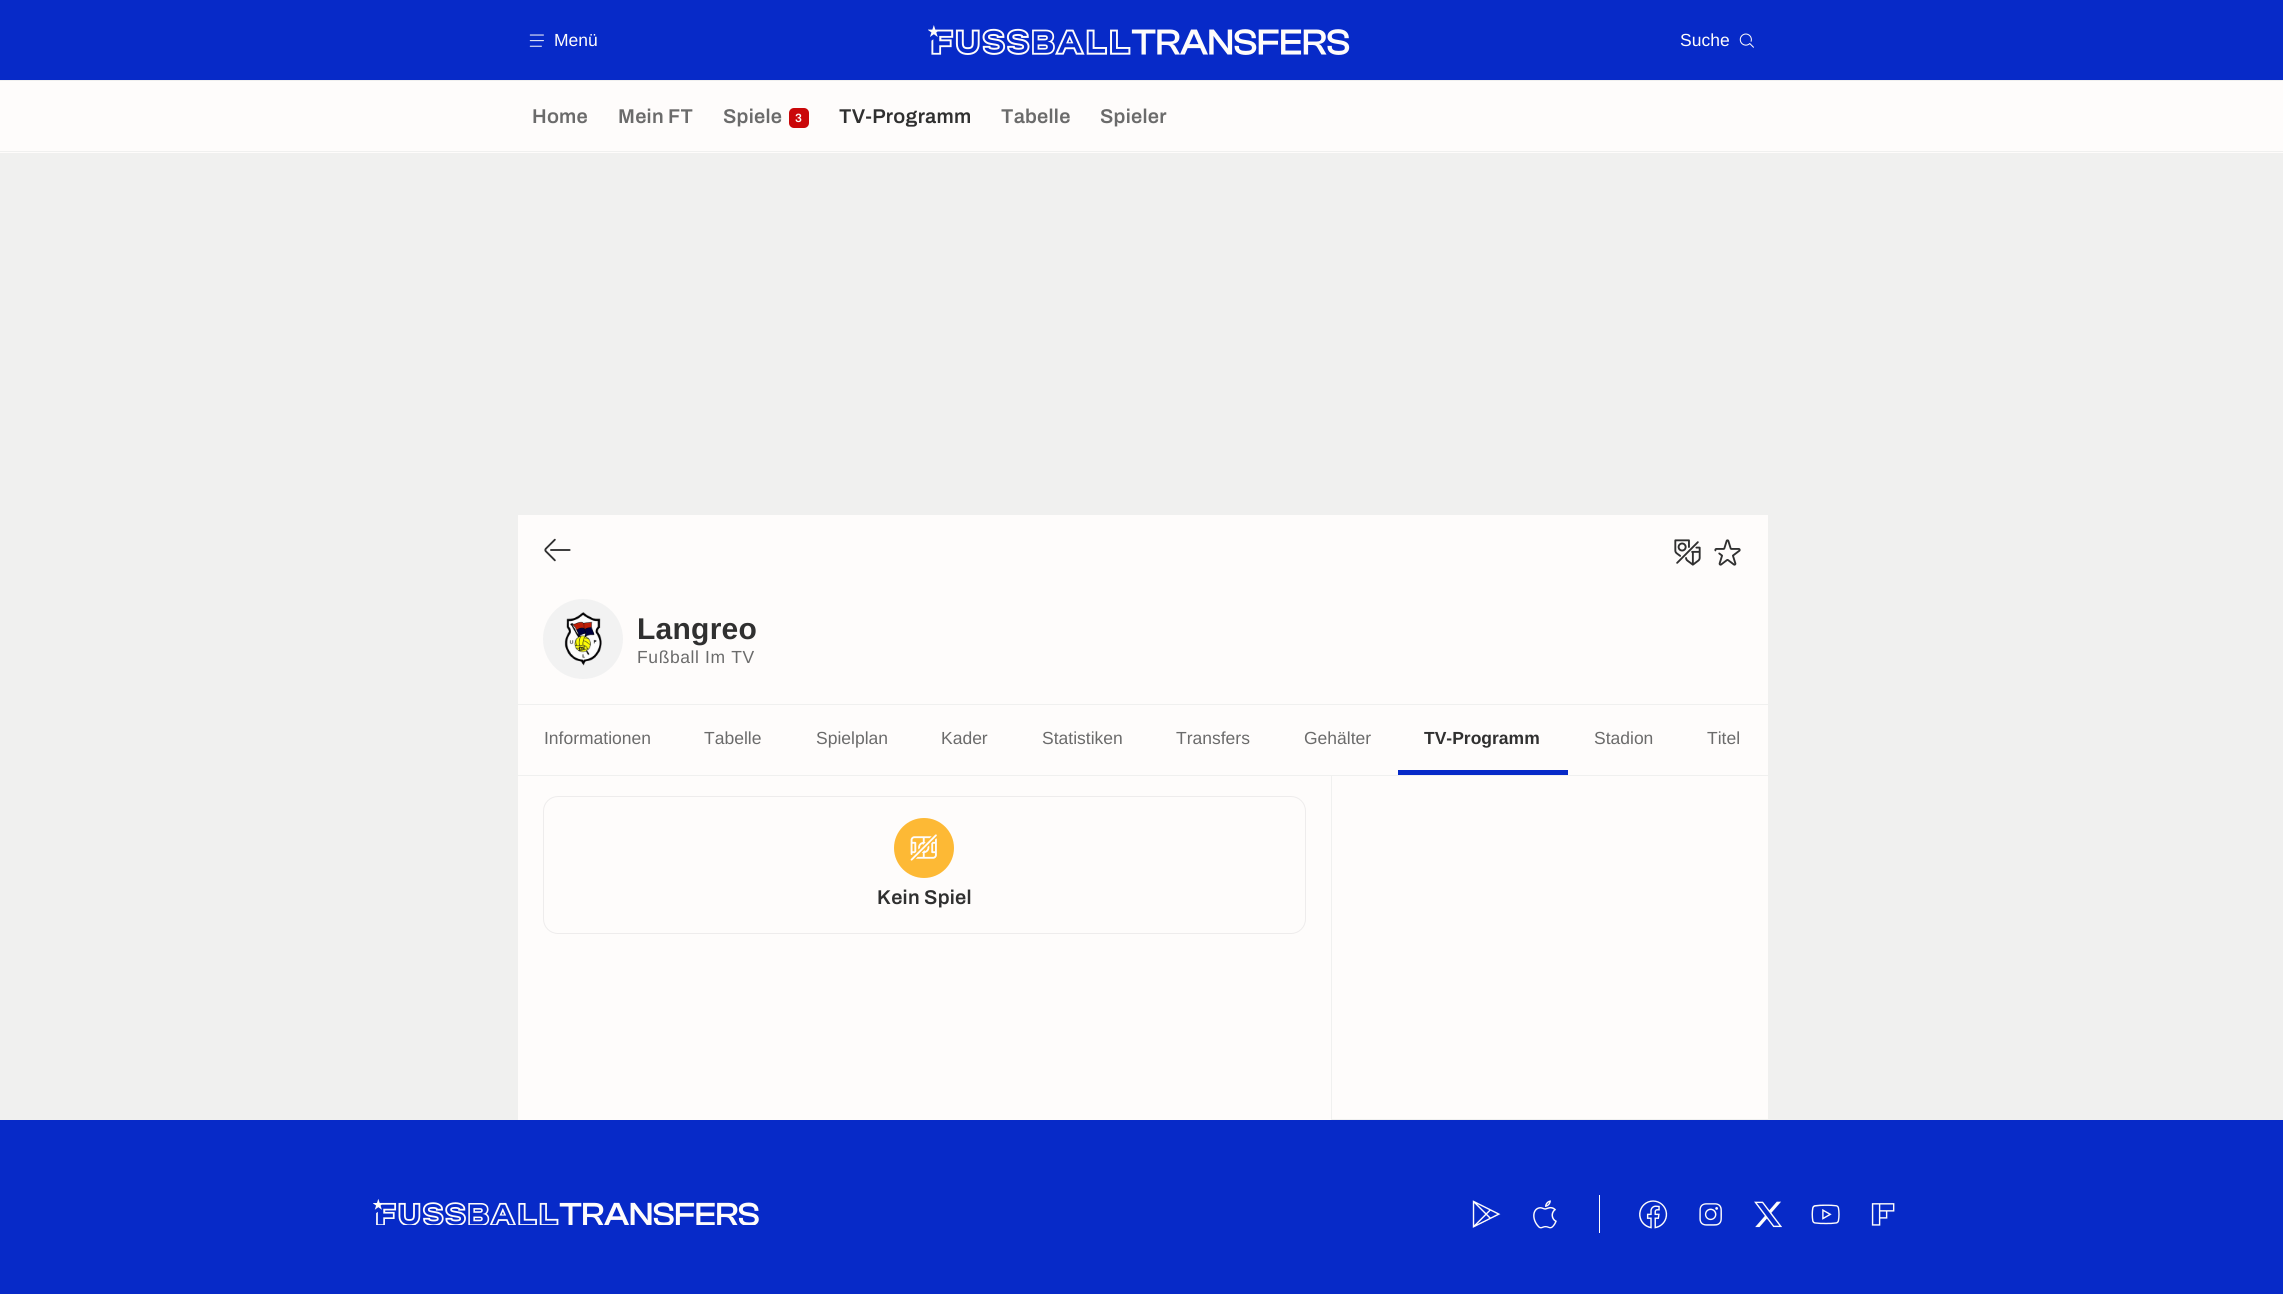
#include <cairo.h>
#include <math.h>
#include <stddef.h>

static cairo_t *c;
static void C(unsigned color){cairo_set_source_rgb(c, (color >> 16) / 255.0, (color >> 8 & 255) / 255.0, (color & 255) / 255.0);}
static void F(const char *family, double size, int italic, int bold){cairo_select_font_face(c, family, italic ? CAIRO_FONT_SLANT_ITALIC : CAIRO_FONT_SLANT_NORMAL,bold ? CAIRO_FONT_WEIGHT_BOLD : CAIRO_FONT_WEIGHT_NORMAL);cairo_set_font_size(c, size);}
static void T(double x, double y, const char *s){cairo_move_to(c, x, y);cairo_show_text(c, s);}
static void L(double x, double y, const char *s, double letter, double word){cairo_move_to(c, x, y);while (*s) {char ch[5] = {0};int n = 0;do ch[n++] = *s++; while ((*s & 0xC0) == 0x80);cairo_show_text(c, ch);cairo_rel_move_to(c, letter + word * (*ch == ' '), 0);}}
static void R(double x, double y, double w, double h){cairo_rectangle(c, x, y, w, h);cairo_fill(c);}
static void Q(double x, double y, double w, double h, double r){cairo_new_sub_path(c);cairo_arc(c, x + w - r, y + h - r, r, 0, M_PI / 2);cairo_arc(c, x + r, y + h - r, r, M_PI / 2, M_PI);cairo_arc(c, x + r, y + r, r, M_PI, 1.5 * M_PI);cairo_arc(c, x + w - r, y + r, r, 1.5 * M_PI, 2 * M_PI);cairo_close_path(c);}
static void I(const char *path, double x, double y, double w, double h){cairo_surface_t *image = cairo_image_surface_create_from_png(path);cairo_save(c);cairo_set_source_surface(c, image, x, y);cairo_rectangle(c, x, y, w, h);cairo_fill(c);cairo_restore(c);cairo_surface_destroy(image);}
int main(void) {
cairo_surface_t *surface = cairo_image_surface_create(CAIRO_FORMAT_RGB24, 2283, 1294);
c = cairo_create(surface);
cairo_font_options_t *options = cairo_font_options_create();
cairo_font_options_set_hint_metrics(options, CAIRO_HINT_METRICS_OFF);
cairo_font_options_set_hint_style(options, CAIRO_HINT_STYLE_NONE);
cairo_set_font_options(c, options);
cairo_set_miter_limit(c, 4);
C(0xf0f0ef);
cairo_paint(c);
C(0x072ac8);
R(0,0,2283,80);
I("1.png",529,34,15,13);
F("Liberation Sans",17.5,0,0);
C(0xfefcfb);
T(554,46,"Menü");
I("2.png",928,25,422,30);
T(1680,46,"Suche");
I("3.png",1739,33,15,15);
R(0,81,2283,72);
C(0xf0f0ef);
R(0,151,2283,1);
F("Archivo SemiBold",20,0,0);
C(0x6b6b6b);
L(532,123,"Home",.25,0);
L(618,123,"Mein FT",.25,0);
L(723,123,"Spiele",.25,0);
C(0xca0709);
Q(789,108,20,20,5);
cairo_fill(c);
F("Archivo SemiBold",12,0,0);
C(0xfefcfb);
L(795,122,"3",.25,0);
F("Archivo SemiBold",20,0,0);
C(0x303030);
L(839,123,"TV-Programm",.25,0);
C(0x6b6b6b);
L(1001,123,"Tabelle",.25,0);
L(1100,123,"Spieler",.25,0);
C(0xfefcfb);
R(518,515,1250,189);
I("4.png",544,538,27,24);
I("5.png",1674,539,27,27);
I("6.png",1714,539,27,27);
C(0xf2f2f2);
cairo_arc(c,583,639,40,0,2 * M_PI);
cairo_fill(c);
I("7.png",564,612,38,54);
F("Liberation Sans",30,0,1);
C(0x303030);
L(637,639,"Langreo",.25,0);
F("Liberation Sans",17.5,0,0);
C(0x6b6b6b);
L(637,663,"Fußball Im TV",.6,0);
C(0xfefcfb);
R(518,705,1250,70);
C(0x6b6b6b);
T(544,744,"Informationen");
T(704,744,"Tabelle");
T(816,744,"Spielplan");
T(941,744,"Kader");
T(1042,744,"Statistiken");
T(1176,744,"Transfers");
T(1304,744,"Gehälter");
F("Liberation Sans",17.5,0,1);
C(0x303030);
T(1424,744,"TV-Programm");
F("Liberation Sans",17.5,0,0);
C(0x6b6b6b);
T(1594,744,"Stadion");
T(1707,744,"Titel");
C(0x072ac8);
R(1398,770,170,5);
C(0xfefcfb);
R(518,776,1250,344);
Q(543.5,796.5,762,137,14.5);
C(0xeeecec);
cairo_set_line_width(c,1);
cairo_stroke(c);
C(0xfdb935);
cairo_arc(c,924,848,30,0,2 * M_PI);
cairo_fill(c);
I("8.png",910,834,27,27);
F("Archivo SemiBold",20,0,0);
C(0x303030);
L(877,904,"Kein Spiel",.25,0);
C(0xf0f0ef);
R(1331,1119,437,1);
R(1331,776,1,344);
C(0x072ac8);
R(0,1120,2283,174);
I("9.png",373,1199,386,26);
I("10.png",1472,1200,29,28);
I("11.png",1533,1200,24,29);
C(0xfefcfb);
R(1599,1195,1,38);
I("12.png",1639,1200,29,29);
I("13.png",1699,1203,23,23);
I("14.png",1754,1201,28,27);
I("15.png",1811,1204,29,21);
I("16.png",1871,1203,24,23);
cairo_surface_write_to_png(surface, "o.png");
cairo_font_options_destroy(options);
cairo_destroy(c);
cairo_surface_destroy(surface);
return 0;
}
